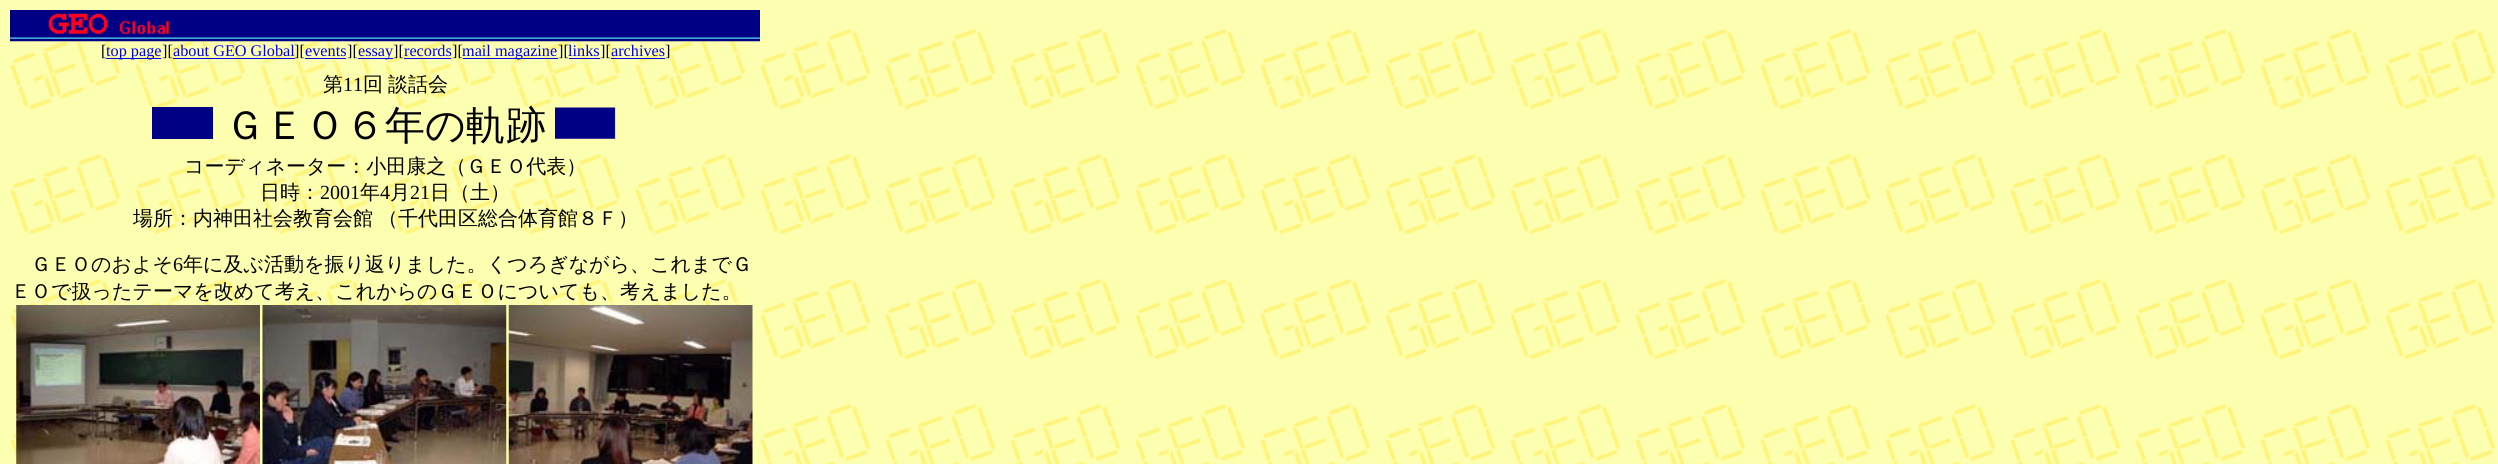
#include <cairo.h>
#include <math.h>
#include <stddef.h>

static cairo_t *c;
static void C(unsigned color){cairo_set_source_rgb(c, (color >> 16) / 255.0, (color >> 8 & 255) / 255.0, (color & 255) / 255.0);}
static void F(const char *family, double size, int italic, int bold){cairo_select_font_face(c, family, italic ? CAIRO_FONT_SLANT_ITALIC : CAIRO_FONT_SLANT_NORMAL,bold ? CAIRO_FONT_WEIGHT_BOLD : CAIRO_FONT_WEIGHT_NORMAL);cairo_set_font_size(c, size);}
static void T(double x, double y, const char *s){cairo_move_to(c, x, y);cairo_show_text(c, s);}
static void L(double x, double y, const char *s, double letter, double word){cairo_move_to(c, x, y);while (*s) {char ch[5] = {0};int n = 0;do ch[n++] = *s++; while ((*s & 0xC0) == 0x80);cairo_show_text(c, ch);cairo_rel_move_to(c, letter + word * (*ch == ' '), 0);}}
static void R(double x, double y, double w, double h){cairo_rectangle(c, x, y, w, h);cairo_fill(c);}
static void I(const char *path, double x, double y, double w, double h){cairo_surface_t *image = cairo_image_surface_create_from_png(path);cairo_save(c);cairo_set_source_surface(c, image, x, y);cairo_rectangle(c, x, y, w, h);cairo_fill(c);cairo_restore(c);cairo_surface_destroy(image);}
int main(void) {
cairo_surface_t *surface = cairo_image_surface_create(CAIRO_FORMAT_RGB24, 2498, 464);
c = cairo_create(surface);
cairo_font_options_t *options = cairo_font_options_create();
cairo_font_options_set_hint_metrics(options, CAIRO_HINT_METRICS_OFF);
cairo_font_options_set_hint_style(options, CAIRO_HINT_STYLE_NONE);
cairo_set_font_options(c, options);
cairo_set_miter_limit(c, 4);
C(0xffffff);
cairo_paint(c);
I("1.png",0,0,2498,464);
I("2.png",10,10,500,32);
I("3.png",510,10,125,32);
I("3.png",635,10,125,32);
F("Liberation Serif",16.25,0,0);
C(0x000000);
T(101,56,"[");
C(0x0000ee);
R(106,58,55,1);
T(106,56,"top page");
C(0x000000);
T(162,56,"][");
C(0x0000ee);
T(173,56,"about GEO Global");
C(0x000000);
T(294,56,"][");
C(0x0000ee);
R(173,58,122,1);
R(305,58,41,1);
T(305,56,"events");
C(0x000000);
T(347,56,"][");
C(0x0000ee);
R(358,58,35,1);
T(358,56,"essay");
C(0x000000);
T(393,56,"][");
C(0x0000ee);
R(404,58,47,1);
T(404,56,"records");
C(0x000000);
T(452,56,"][");
C(0x0000ee);
R(463,58,95,1);
T(462,56,"mail magazine");
C(0x000000);
T(558,56,"][");
C(0x0000ee);
T(568,56,"links");
C(0x000000);
T(600,56,"][");
C(0x0000ee);
R(569,58,31,1);
R(611,58,54,1);
T(611,56,"archives");
C(0x000000);
T(665,56,"]");
F("WenQuanYi Zen Hei Medium",20,0,0);
T(323,91,"第");
F("Liberation Serif",20,0,0);
T(343,91,"11");
F("WenQuanYi Zen Hei Medium",20,0,0);
L(363,91,"回 談話会",0,-1);
F("WenQuanYi Zen Hei Medium",40,0,0);
T(225,139,"ＧＥＯ６年の軌跡");
C(0x000084);
R(152,107,61,32);
I("4.png",555,107,61,32);
F("WenQuanYi Zen Hei Medium",20,0,0);
C(0x000000);
T(184,173,"コーディネーター：小田康之（ＧＥＯ代表）");
T(260,199,"日時：");
F("Liberation Serif",20,0,0);
T(320,199,"2001");
F("WenQuanYi Zen Hei Medium",20,0,0);
T(360,199,"年");
F("Liberation Serif",20,0,0);
T(380,199,"4");
F("WenQuanYi Zen Hei Medium",20,0,0);
T(390,199,"月");
F("Liberation Serif",20,0,0);
T(410,199,"21");
F("WenQuanYi Zen Hei Medium",20,0,0);
T(430,199,"日（土）");
L(133,225,"場所：内神田社会教育会館 （千代田区総合体育館８Ｆ）",0,-1);
T(31,271,"ＧＥＯのおよそ");
F("Liberation Serif",20,0,0);
T(173,271,"6");
F("WenQuanYi Zen Hei Medium",20,0,0);
T(183,271,"年に及ぶ活動を振り返りました。くつろぎながら、これまでＧ");
T(11,298,"ＥＯで扱ったテーマを改めて考え、これからのＧＥＯについても、考えました。");
I("5.png",16,305,244,159);
I("6.png",262,305,245,159);
I("7.png",508,305,245,159);
cairo_surface_write_to_png(surface, "o.png");
cairo_font_options_destroy(options);
cairo_destroy(c);
cairo_surface_destroy(surface);
return 0;
}
